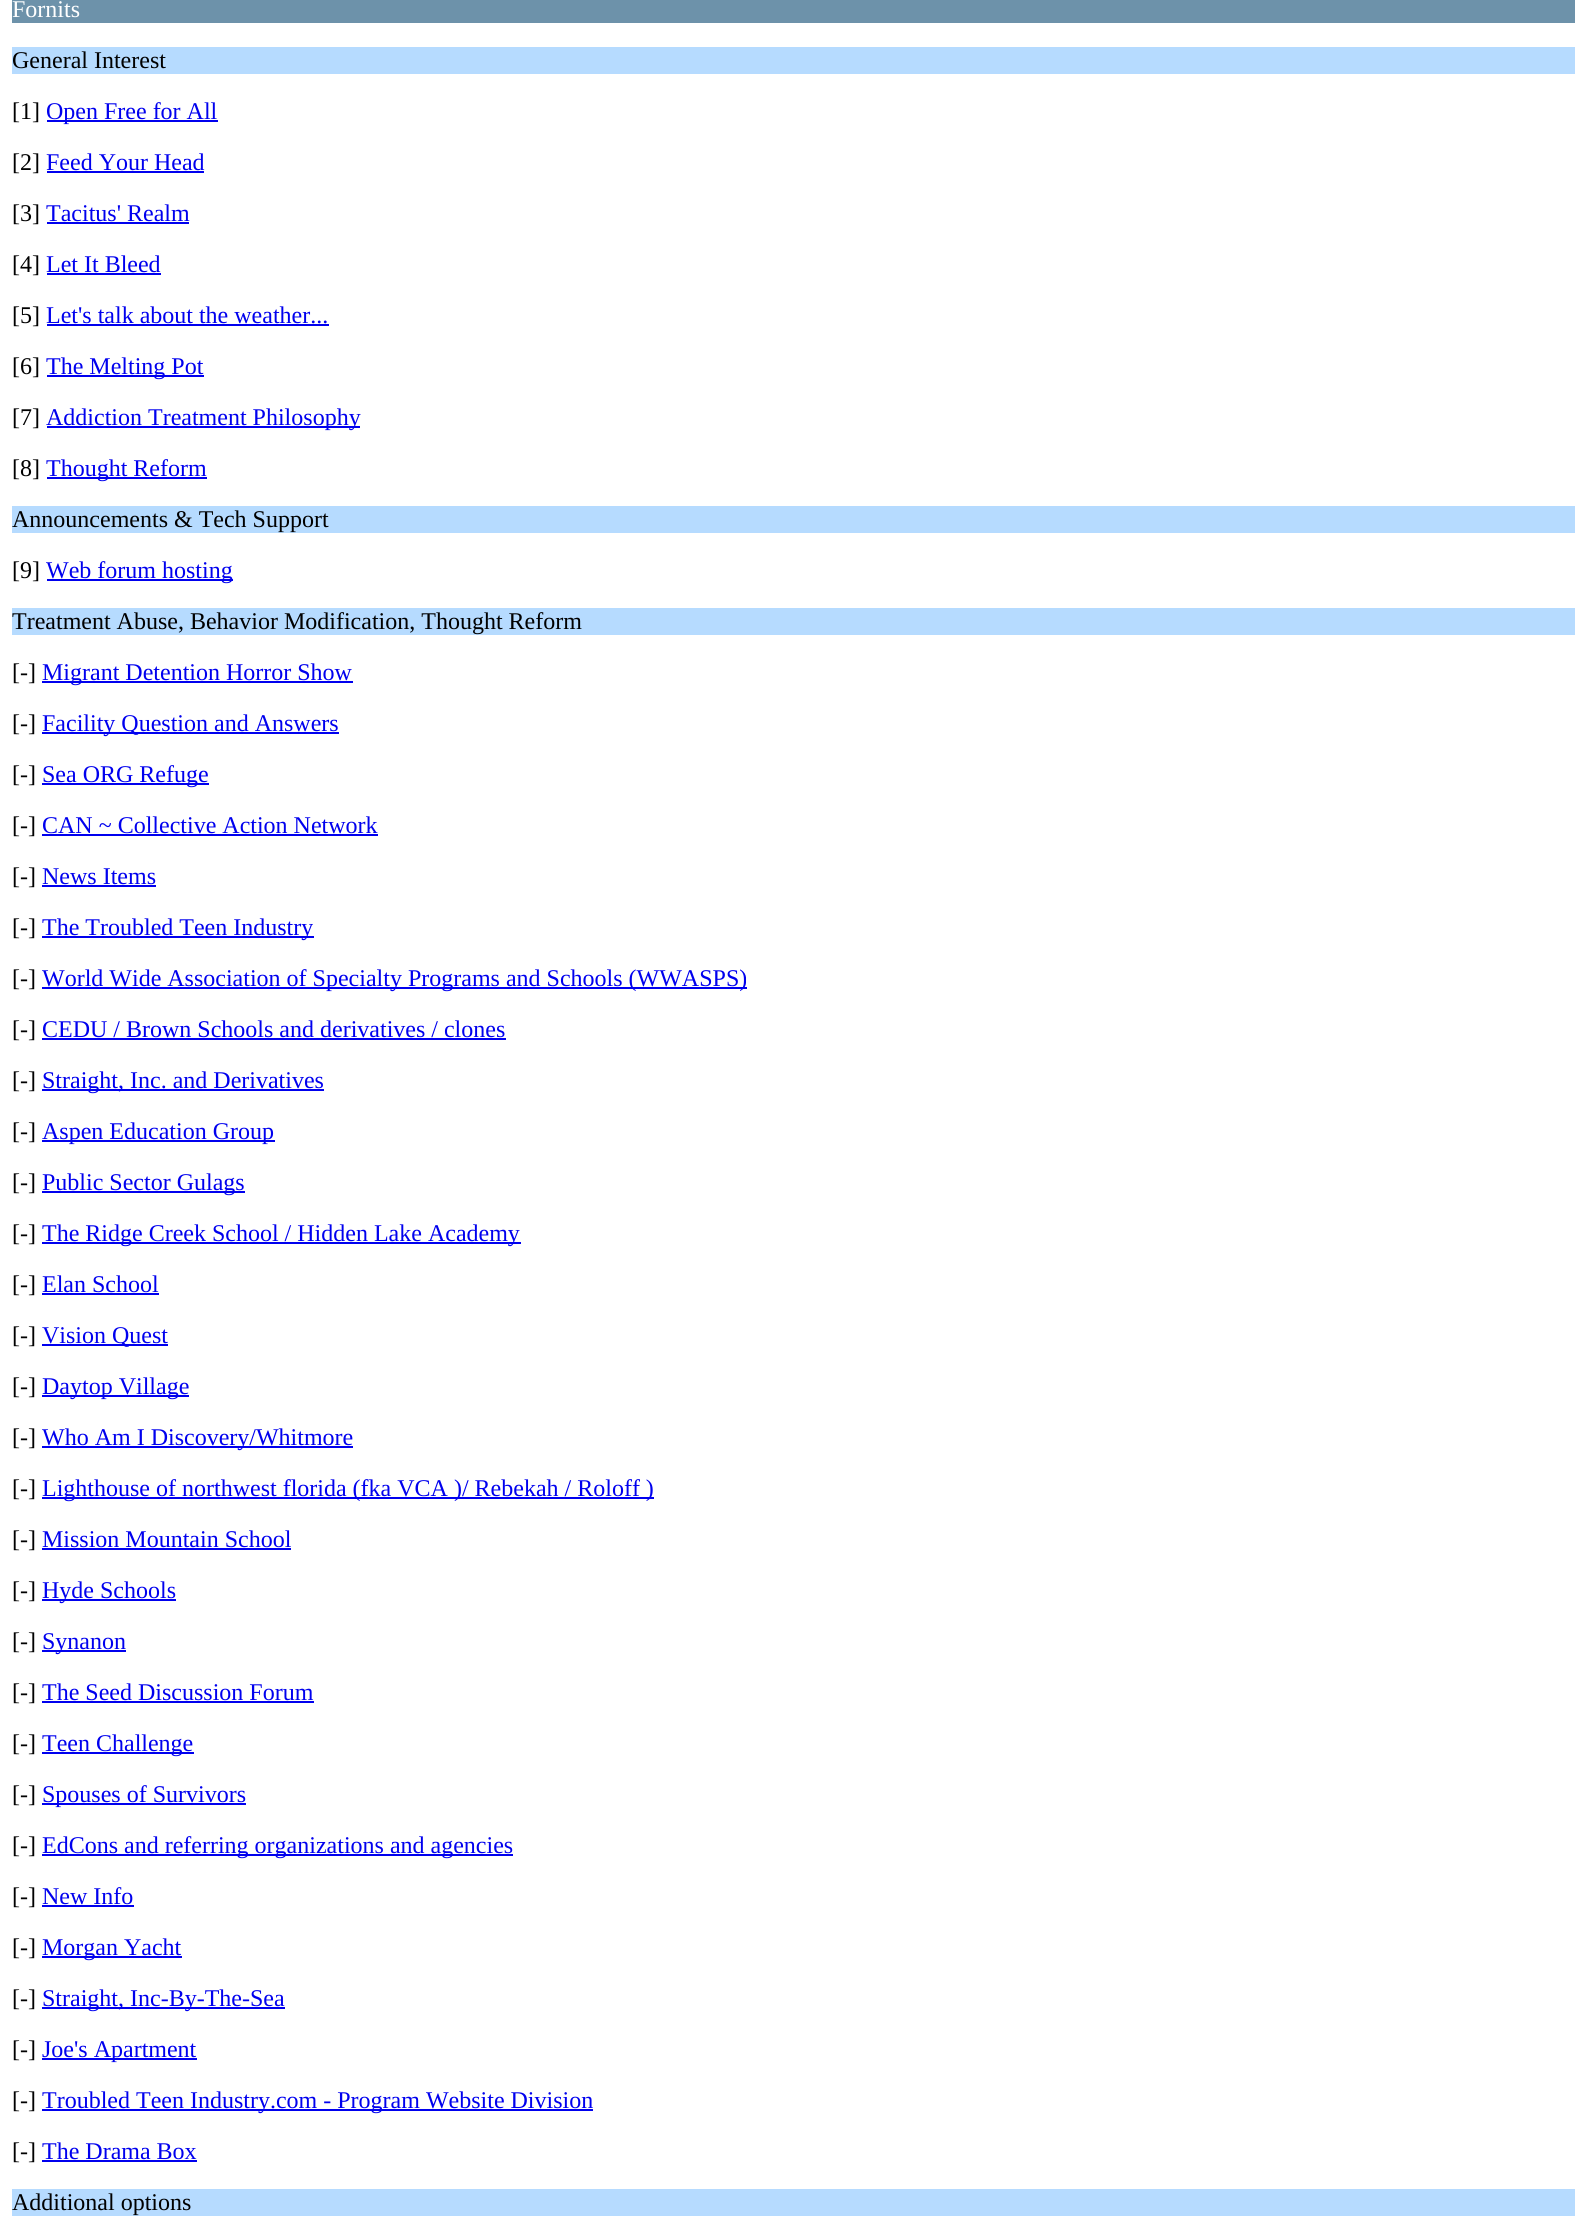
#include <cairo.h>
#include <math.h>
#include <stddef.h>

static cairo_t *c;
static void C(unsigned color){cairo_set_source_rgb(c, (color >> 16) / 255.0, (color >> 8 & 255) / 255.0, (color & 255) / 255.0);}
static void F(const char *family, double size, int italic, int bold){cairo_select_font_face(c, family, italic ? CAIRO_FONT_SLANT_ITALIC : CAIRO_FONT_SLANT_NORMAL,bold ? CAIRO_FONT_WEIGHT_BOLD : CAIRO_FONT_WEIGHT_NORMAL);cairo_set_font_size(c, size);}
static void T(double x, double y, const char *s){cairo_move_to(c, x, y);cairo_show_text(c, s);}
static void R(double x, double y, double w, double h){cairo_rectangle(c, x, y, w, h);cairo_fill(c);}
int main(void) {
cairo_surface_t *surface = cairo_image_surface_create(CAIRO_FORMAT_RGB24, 1586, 2238);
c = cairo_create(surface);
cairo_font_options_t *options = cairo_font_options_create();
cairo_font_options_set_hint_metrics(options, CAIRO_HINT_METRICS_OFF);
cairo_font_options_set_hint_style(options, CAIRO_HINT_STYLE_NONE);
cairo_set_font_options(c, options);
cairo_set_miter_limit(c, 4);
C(0xffffff);
cairo_paint(c);
C(0x6d92aa);
R(12,0,1563,23);
F("Liberation Serif",24,0,0);
C(0xffffff);
T(12,17,"Fornits");
C(0xb6dbff);
R(12,47,1563,27);
C(0x000000);
T(12,68,"General Interest");
T(12,119,"[1]");
C(0x0000ee);
R(47,120,171,2);
T(46,119,"Open Free for All");
C(0x000000);
T(12,170,"[2]");
C(0x0000ee);
T(46,170,"Feed Your Head");
R(47,171,157,2);
C(0x000000);
T(12,221,"[3]");
C(0x0000ee);
T(46,221,"Tacitus' Realm");
R(47,222,142,2);
C(0x000000);
T(12,272,"[4]");
C(0x0000ee);
T(46,272,"Let It Bleed");
R(47,273,114,2);
C(0x000000);
T(12,323,"[5]");
C(0x0000ee);
T(46,323,"Let's talk about the weather...");
R(47,324,282,2);
C(0x000000);
T(12,374,"[6]");
C(0x0000ee);
R(47,375,157,2);
T(46,374,"The Melting Pot");
C(0x000000);
T(12,425,"[7]");
C(0x0000ee);
R(47,426,313,2);
T(46,425,"Addiction Treatment Philosophy");
C(0x000000);
T(12,476,"[8]");
C(0x0000ee);
R(47,477,160,2);
T(46,476,"Thought Reform");
C(0xb6dbff);
R(12,506,1563,27);
C(0x000000);
T(12,527,"Announcements & Tech Support");
T(12,578,"[9]");
C(0x0000ee);
R(47,579,186,2);
T(46,578,"Web forum hosting");
C(0xb6dbff);
R(12,608,1563,27);
C(0x000000);
T(12,629,"Treatment Abuse, Behavior Modification, Thought Reform");
T(12,680,"[-]");
C(0x0000ee);
R(42,681,311,2);
T(42,680,"Migrant Detention Horror Show");
C(0x000000);
T(12,731,"[-]");
C(0x0000ee);
R(42,732,297,2);
T(42,731,"Facility Question and Answers");
C(0x000000);
T(12,782,"[-]");
C(0x0000ee);
R(42,783,167,2);
T(42,782,"Sea ORG Refuge");
C(0x000000);
T(12,833,"[-]");
C(0x0000ee);
T(42,833,"CAN ~ Collective Action Network");
R(42,834,336,2);
C(0x000000);
T(12,884,"[-]");
C(0x0000ee);
T(42,884,"News Items");
R(42,885,114,2);
C(0x000000);
T(12,935,"[-]");
C(0x0000ee);
R(42,936,272,2);
T(42,935,"The Troubled Teen Industry");
C(0x000000);
T(12,986,"[-]");
C(0x0000ee);
R(42,987,705,2);
T(42,986,"World Wide Association of Specialty Programs and Schools (WWASPS)");
C(0x000000);
T(12,1037,"[-]");
C(0x0000ee);
T(42,1037,"CEDU / Brown Schools and derivatives / clones");
R(42,1038,464,2);
C(0x000000);
T(12,1088,"[-]");
C(0x0000ee);
R(42,1089,282,2);
T(42,1088,"Straight, Inc. and Derivatives");
C(0x000000);
T(12,1139,"[-]");
C(0x0000ee);
R(42,1140,233,2);
T(42,1139,"Aspen Education Group");
C(0x000000);
T(12,1190,"[-]");
C(0x0000ee);
R(42,1191,203,2);
T(42,1190,"Public Sector Gulags");
C(0x000000);
T(12,1241,"[-]");
C(0x0000ee);
R(42,1242,479,2);
T(42,1241,"The Ridge Creek School / Hidden Lake Academy");
C(0x000000);
T(12,1292,"[-]");
C(0x0000ee);
T(42,1292,"Elan School");
R(42,1293,117,2);
C(0x000000);
T(12,1343,"[-]");
C(0x0000ee);
R(42,1344,126,2);
T(42,1343,"Vision Quest");
C(0x000000);
T(12,1394,"[-]");
C(0x0000ee);
R(42,1395,147,2);
T(42,1394,"Daytop Village");
C(0x000000);
T(12,1445,"[-]");
C(0x0000ee);
R(42,1446,311,2);
T(42,1445,"Who Am I Discovery/Whitmore");
C(0x000000);
T(12,1496,"[-]");
C(0x0000ee);
R(42,1497,612,2);
T(42,1496,"Lighthouse of northwest florida (fka VCA )/ Rebekah / Roloff )");
C(0x000000);
T(12,1547,"[-]");
C(0x0000ee);
T(42,1547,"Mission Mountain School");
R(42,1548,249,2);
C(0x000000);
T(12,1598,"[-]");
C(0x0000ee);
R(42,1599,134,2);
T(42,1598,"Hyde Schools");
C(0x000000);
T(12,1649,"[-]");
C(0x0000ee);
R(42,1650,84,2);
T(42,1649,"Synanon");
C(0x000000);
T(12,1700,"[-]");
C(0x0000ee);
T(42,1700,"The Seed Discussion Forum");
R(42,1701,272,2);
C(0x000000);
T(12,1751,"[-]");
C(0x0000ee);
R(42,1752,152,2);
T(42,1751,"Teen Challenge");
C(0x000000);
T(12,1802,"[-]");
C(0x0000ee);
R(42,1803,204,2);
T(42,1802,"Spouses of Survivors");
C(0x000000);
T(12,1853,"[-]");
C(0x0000ee);
R(42,1854,471,2);
T(42,1853,"EdCons and referring organizations and agencies");
C(0x000000);
T(12,1904,"[-]");
C(0x0000ee);
T(42,1904,"New Info");
R(42,1905,92,2);
C(0x000000);
T(12,1955,"[-]");
C(0x0000ee);
R(42,1956,140,2);
T(42,1955,"Morgan Yacht");
C(0x000000);
T(12,2006,"[-]");
C(0x0000ee);
R(42,2007,243,2);
T(42,2006,"Straight, Inc-By-The-Sea");
C(0x000000);
T(12,2057,"[-]");
C(0x0000ee);
R(42,2058,155,2);
T(42,2057,"Joe's Apartment");
C(0x000000);
T(12,2108,"[-]");
C(0x0000ee);
R(42,2109,551,2);
T(42,2108,"Troubled Teen Industry.com - Program Website Division");
C(0x000000);
T(12,2159,"[-]");
C(0x0000ee);
T(42,2159,"The Drama Box");
R(42,2160,155,2);
C(0xb6dbff);
R(12,2189,1563,27);
C(0x000000);
T(12,2210,"Additional options");
cairo_surface_write_to_png(surface, "o.png");
cairo_font_options_destroy(options);
cairo_destroy(c);
cairo_surface_destroy(surface);
return 0;
}
